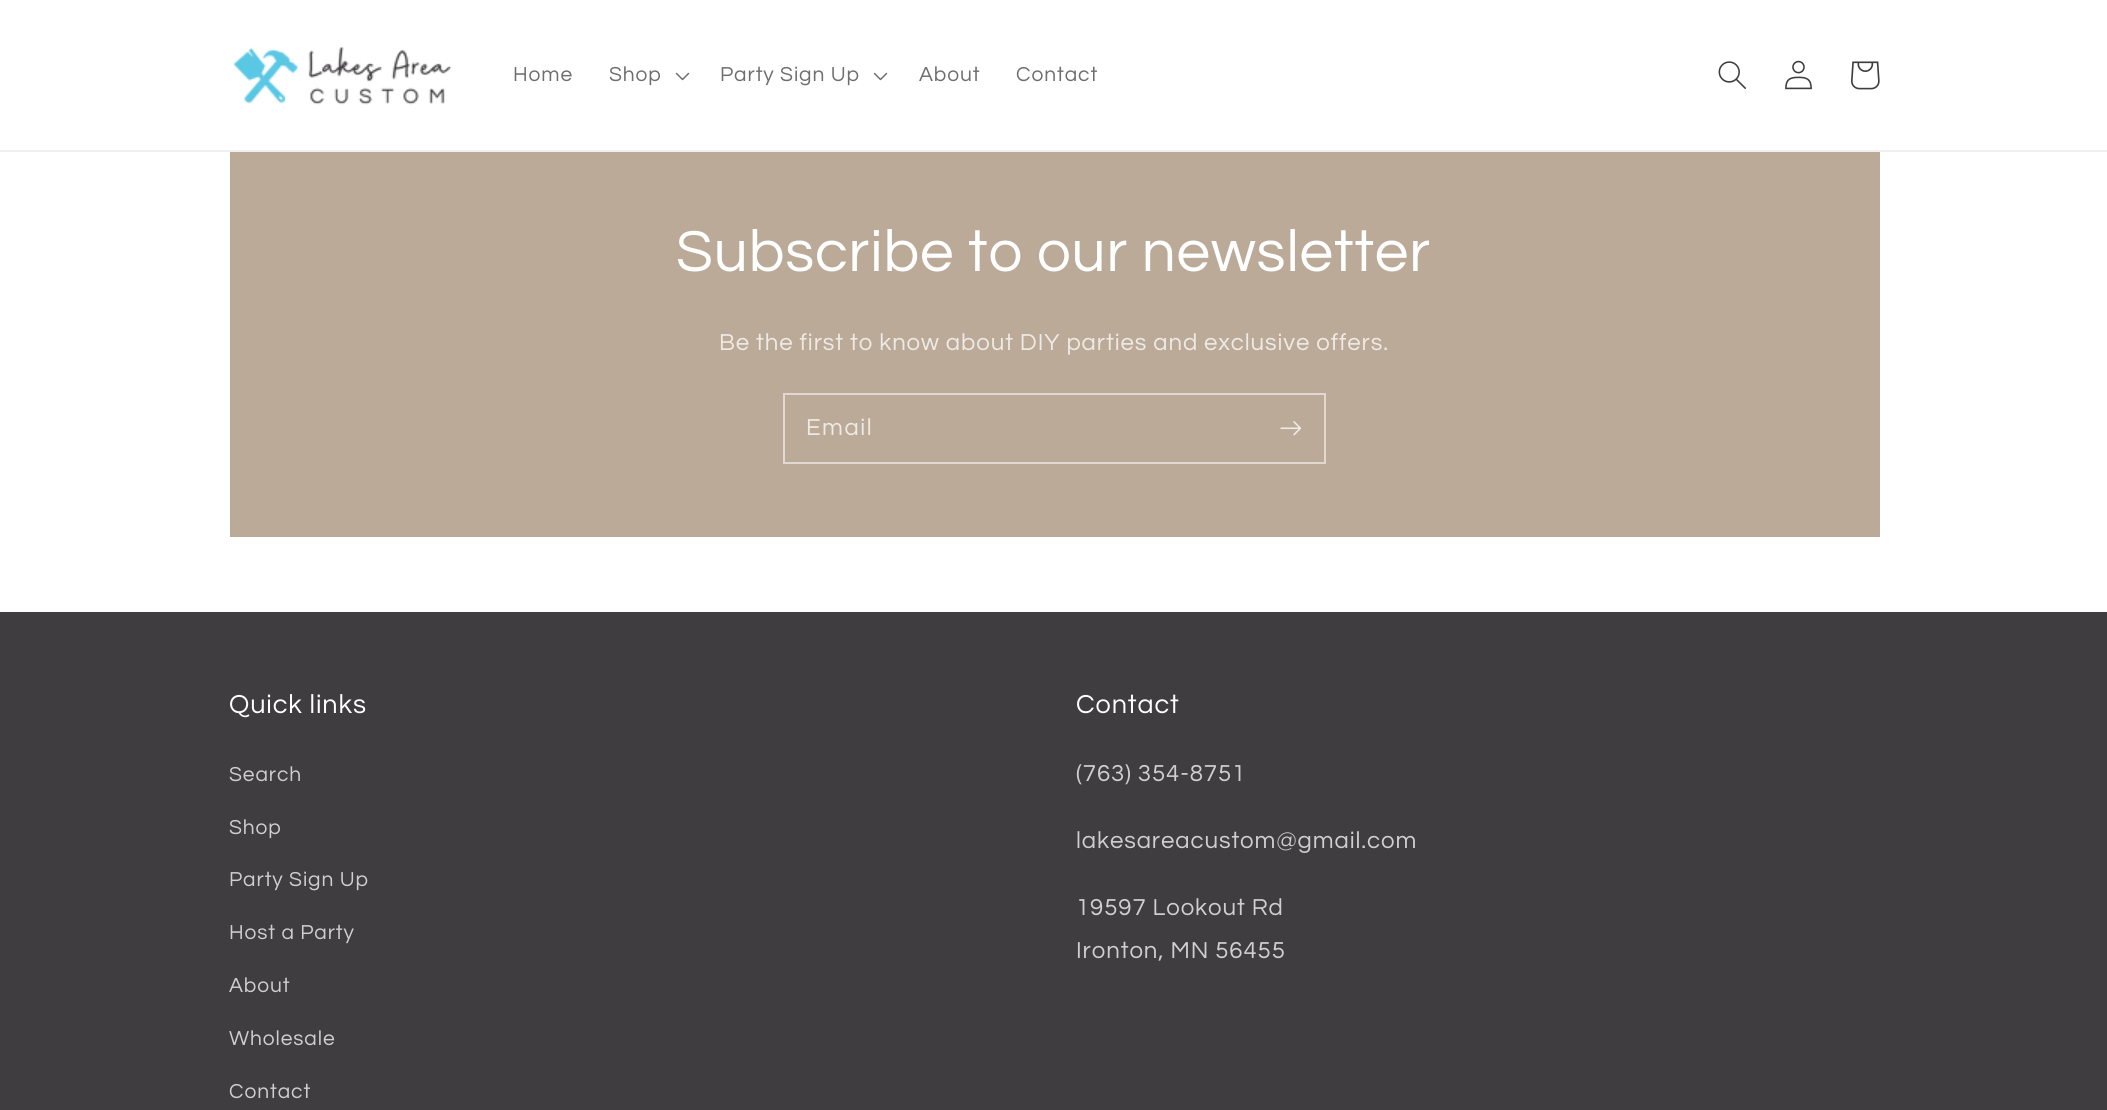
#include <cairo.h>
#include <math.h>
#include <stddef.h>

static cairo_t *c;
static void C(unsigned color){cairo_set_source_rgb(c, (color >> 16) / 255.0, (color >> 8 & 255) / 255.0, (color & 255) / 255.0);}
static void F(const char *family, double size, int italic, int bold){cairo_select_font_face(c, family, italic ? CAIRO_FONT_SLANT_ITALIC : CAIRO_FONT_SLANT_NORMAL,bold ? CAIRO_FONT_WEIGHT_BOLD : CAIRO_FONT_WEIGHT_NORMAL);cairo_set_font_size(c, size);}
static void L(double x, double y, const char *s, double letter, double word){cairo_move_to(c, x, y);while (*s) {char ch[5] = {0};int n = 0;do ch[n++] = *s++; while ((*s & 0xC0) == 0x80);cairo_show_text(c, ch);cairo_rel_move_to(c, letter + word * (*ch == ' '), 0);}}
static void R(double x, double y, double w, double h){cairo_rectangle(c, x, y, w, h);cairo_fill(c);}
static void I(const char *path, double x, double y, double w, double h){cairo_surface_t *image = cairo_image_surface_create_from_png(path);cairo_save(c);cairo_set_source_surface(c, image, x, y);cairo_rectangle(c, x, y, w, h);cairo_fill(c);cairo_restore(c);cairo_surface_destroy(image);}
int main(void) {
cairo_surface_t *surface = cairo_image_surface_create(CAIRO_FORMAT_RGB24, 2107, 1110);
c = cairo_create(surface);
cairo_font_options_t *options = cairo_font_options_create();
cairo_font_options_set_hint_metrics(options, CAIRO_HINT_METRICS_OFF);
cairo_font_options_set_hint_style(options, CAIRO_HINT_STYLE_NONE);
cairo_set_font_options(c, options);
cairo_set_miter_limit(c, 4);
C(0xffffff);
cairo_paint(c);
C(0xf0eff0);
R(0,150,2107,2);
I("1.png",233,47,219,58);
F("Questrial",21,0,0);
C(0x6f6e6f);
L(513,81,"Home",.9,0);
L(609,81,"Shop",.9,0);
I("2.png",675,72,15,9);
L(720,81,"Party Sign Up",.9,0);
I("2.png",873,72,15,9);
L(919,81,"About",.9,0);
L(1016,81,"Contact",.9,0);
I("3.png",1718,61,28,28);
I("4.png",1785,60,27,30);
I("5.png",1851,61,29,29);
C(0xbcaa99);
R(230,152,1650,385);
F("Questrial",60,0,0);
C(0xffffff);
L(676,271,"Subscribe to our newsletter",.9,0);
F("Questrial",24,0,0);
C(0xeeeae6);
L(719,350,"Be the first to know about DIY parties and exclusive offers.",.9,0);
cairo_rectangle(c,784,394,541,69);
C(0xe1d9d1);
cairo_stroke(c);
C(0xeeeae6);
L(806,435,"Email",1.5,0);
I("6.png",1280,421,22,15);
C(0x3f3d3f);
R(0,612,2107,498);
F("Questrial",27,0,0);
C(0xffffff);
L(229,713,"Quick links",.9,0);
F("Questrial",21,0,0);
C(0xcfcfcf);
L(229,781,"Search",.9,0);
L(229,834,"Shop",.9,0);
L(229,886,"Party Sign Up",.9,0);
L(229,939,"Host a Party",.9,0);
L(229,992,"About",.9,0);
L(229,1045,"Wholesale",.9,0);
L(229,1098,"Contact",.9,0);
F("Questrial",27,0,0);
C(0xffffff);
L(1076,713,"Contact",.9,0);
F("Questrial",24,0,0);
C(0xcfcfcf);
L(1076,781,"(763) 354-8751",.9,0);
L(1076,848,"lakesareacustom@gmail.com",.9,0);
L(1076,915,"19597 Lookout Rd",.9,0);
L(1076,958,"Ironton, MN 56455",.9,0);
cairo_surface_write_to_png(surface, "o.png");
cairo_font_options_destroy(options);
cairo_destroy(c);
cairo_surface_destroy(surface);
return 0;
}
